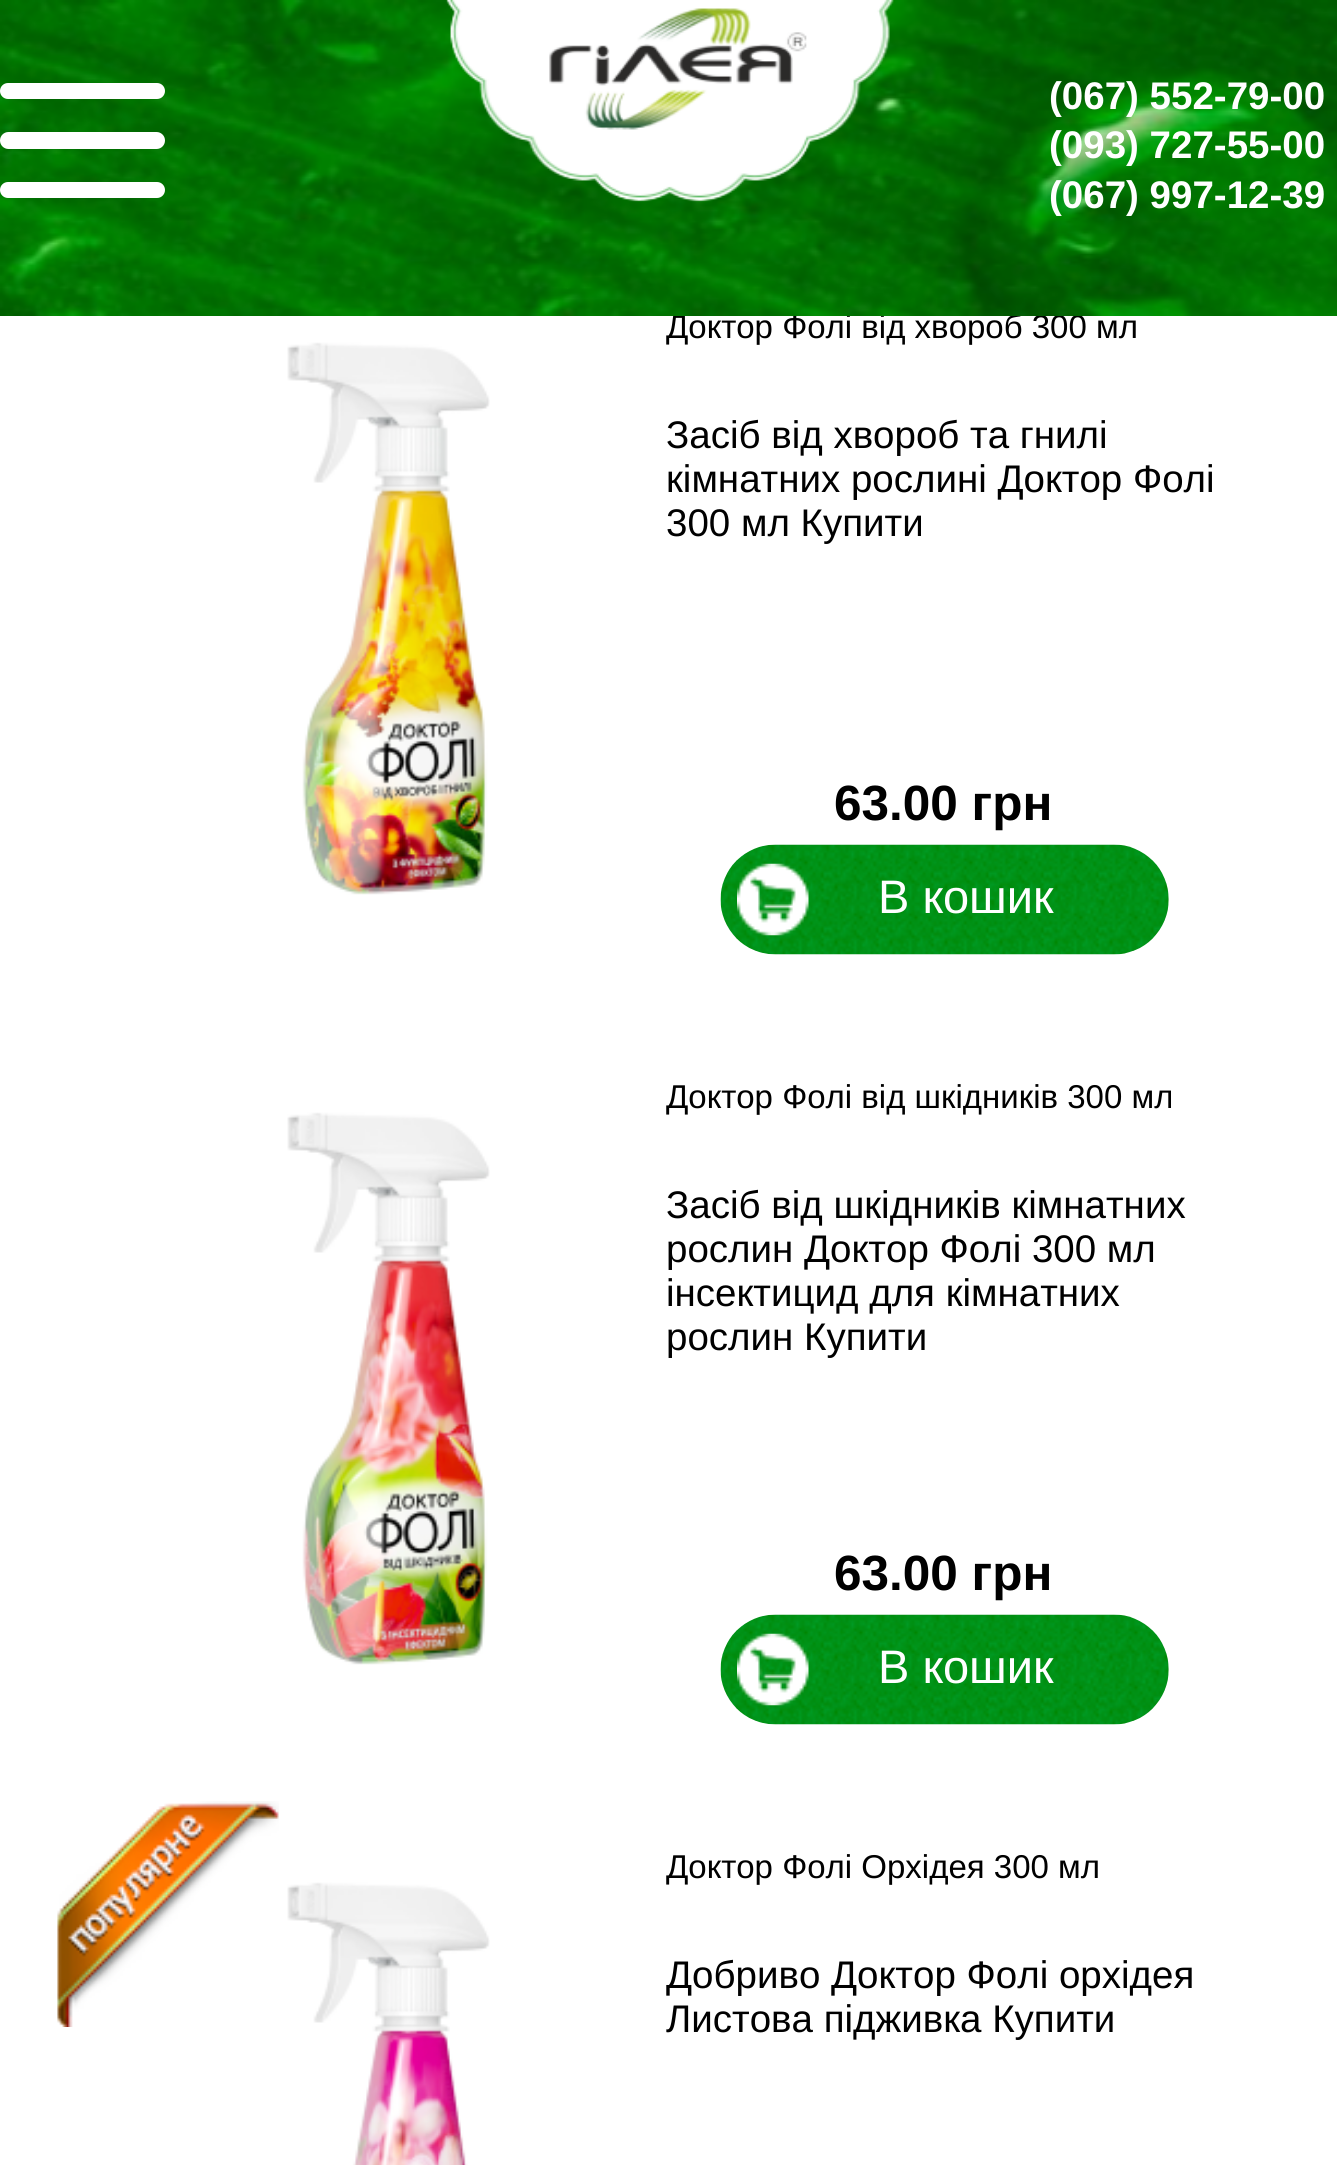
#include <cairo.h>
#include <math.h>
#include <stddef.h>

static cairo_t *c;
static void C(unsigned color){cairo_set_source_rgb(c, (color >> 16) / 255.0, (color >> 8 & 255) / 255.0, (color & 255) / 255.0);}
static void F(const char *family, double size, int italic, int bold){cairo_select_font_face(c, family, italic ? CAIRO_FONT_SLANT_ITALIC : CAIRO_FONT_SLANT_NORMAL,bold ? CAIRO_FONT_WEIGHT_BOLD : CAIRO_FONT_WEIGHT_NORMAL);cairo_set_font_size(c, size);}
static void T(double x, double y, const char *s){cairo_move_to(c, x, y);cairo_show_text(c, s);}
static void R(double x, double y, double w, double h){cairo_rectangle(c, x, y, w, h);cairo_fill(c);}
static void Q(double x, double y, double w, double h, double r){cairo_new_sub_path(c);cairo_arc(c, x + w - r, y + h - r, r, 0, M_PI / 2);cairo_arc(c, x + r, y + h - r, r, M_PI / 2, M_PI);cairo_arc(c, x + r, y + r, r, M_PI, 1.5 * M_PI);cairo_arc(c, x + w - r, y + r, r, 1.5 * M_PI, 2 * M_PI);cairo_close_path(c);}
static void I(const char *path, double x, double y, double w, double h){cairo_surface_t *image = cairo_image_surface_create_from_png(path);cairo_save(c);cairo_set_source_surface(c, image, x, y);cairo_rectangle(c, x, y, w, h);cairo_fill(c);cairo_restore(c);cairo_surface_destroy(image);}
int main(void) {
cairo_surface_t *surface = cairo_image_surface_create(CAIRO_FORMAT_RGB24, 1337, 2165);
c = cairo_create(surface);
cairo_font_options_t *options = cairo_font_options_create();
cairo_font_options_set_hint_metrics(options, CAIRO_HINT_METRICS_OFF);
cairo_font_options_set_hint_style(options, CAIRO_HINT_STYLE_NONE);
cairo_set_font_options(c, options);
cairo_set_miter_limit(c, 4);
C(0xffffff);
cairo_paint(c);
F("Liberation Sans",33,0,0);
C(0x000000);
T(666,338,"Доктор Фолі від хвороб 300 мл");
I("1.png",0,0,1337,316);
C(0x048302);
R(567,288,1,1);
C(0xffffff);
Q(0,83,165,16,8);
cairo_fill(c);
Q(0,132,165,17,8.5);
cairo_fill(c);
Q(0,182,165,16,8);
cairo_fill(c);
I("2.png",446,0,448,202);
F("Liberation Sans",38.5,0,1);
T(1049,109,"(067) 552-79-00");
T(1049,158,"(093) 727-55-00");
T(1049,208,"(067) 997-12-39");
I("3.png",287,342,203,553);
F("Liberation Sans",38.5,0,0);
C(0x000000);
T(666,448,"Засіб від хвороб та гнилі");
T(666,492,"кімнатних рослині Доктор Фолі");
T(666,536,"300 мл Купити");
F("Liberation Sans",49.5,0,1);
T(834,820,"63.00 грн");
I("4.png",720,844,449,111);
I("5.png",737,863,72,73);
F("Liberation Sans",47,0,0);
C(0xffffff);
T(878,913,"В кошик");
I("6.png",287,1112,203,553);
F("Liberation Sans",33,0,0);
C(0x000000);
T(666,1108,"Доктор Фолі від шкідників 300 мл");
F("Liberation Sans",38.5,0,0);
T(666,1218,"Засіб від шкідників кімнатних");
T(666,1262,"рослин Доктор Фолі 300 мл");
T(666,1306,"інсектицид для кімнатних");
T(666,1350,"рослин Купити");
F("Liberation Sans",49.5,0,1);
T(834,1590,"63.00 грн");
I("4.png",720,1614,449,111);
I("7.png",737,1633,72,73);
F("Liberation Sans",47,0,0);
C(0xffffff);
T(878,1683,"В кошик");
I("8.png",57,1801,222,226);
I("9.png",287,1882,203,283);
F("Liberation Sans",33,0,0);
C(0x000000);
T(666,1878,"Доктор Фолі Орхідея 300 мл");
F("Liberation Sans",38.5,0,0);
T(666,1988,"Добриво Доктор Фолі орхідея");
T(666,2032,"Листова підживка Купити");
cairo_surface_write_to_png(surface, "o.png");
cairo_font_options_destroy(options);
cairo_destroy(c);
cairo_surface_destroy(surface);
return 0;
}
